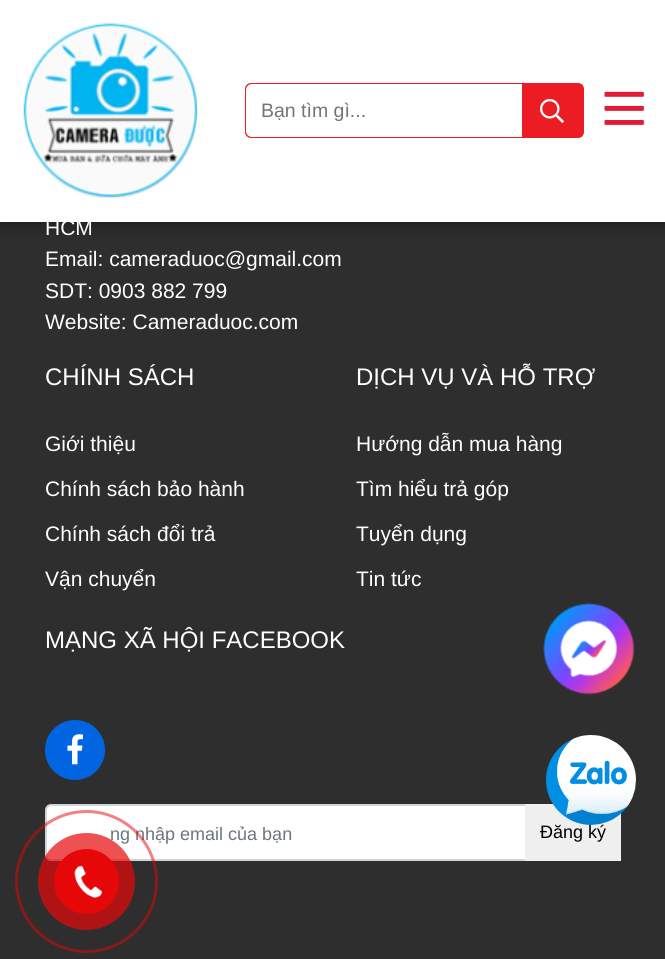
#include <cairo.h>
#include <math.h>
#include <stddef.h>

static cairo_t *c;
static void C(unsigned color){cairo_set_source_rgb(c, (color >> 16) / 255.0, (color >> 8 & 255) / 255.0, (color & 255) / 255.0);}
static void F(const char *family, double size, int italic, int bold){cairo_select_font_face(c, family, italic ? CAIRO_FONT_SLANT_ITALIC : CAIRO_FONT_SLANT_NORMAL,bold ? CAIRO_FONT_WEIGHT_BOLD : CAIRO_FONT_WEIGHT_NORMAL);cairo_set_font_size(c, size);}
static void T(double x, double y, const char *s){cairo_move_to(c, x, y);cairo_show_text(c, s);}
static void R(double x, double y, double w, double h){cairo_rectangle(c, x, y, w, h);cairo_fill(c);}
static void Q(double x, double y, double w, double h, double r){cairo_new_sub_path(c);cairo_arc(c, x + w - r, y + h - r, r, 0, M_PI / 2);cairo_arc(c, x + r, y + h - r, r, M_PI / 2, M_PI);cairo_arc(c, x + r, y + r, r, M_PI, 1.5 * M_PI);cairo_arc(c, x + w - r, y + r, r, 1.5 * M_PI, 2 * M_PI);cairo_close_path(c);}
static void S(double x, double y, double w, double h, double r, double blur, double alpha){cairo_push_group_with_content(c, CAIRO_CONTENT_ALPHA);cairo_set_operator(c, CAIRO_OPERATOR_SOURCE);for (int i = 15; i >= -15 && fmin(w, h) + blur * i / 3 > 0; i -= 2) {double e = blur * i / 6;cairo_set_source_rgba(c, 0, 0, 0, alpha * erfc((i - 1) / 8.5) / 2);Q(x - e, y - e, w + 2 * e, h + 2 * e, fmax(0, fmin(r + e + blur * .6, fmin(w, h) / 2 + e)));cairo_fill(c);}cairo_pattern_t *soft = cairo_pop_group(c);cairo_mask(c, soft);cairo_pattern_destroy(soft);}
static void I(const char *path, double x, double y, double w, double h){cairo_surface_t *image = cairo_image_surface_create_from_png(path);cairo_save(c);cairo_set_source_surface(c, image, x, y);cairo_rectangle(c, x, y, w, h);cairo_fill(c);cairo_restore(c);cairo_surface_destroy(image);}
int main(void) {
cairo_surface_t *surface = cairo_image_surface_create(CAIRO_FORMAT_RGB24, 665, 959);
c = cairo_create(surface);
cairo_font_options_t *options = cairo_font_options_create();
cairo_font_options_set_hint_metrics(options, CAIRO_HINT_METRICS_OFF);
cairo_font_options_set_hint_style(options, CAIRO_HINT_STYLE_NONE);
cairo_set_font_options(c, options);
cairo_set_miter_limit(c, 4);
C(0x2e2e2e);
cairo_paint(c);
C(0x000000);
S(0,-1,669,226,0,8,.4);
C(0xffffff);
R(0,0,665,222);
I("1.png",23,22,175,177);
Q(246,84,337,53,5);
C(0xeb1c24);
cairo_stroke(c);
C(0xffffff);
Q(246,84,336,53,6);
cairo_fill(c);
F("Liberation Sans",19.5,0,0);
C(0x757575);
T(261,117,"Bạn tìm gì...");
C(0xeb1c24);
R(522,84,60,53);
I("2.png",540,99,24,24);
I("3.png",604,91,40,34);
F("Liberation Sans",21,0,0);
C(0xffffff);
T(45,235,"HCM");
T(45,266,"Email: cameraduoc@gmail.com");
T(45,298,"SDT: 0903 882 799");
T(45,329,"Website: Cameraduoc.com");
F("Liberation Sans",24,0,0);
T(45,385,"CHÍNH SÁCH");
F("Liberation Sans",21,0,0);
T(45,451,"Giới thiệu");
T(45,496,"Chính sách bảo hành");
T(45,541,"Chính sách đổi trả");
T(45,586,"Vận chuyển");
F("Liberation Sans",24,0,0);
T(356,385,"DỊCH VỤ VÀ HỖ TRỢ");
F("Liberation Sans",21,0,0);
T(356,451,"Hướng dẫn mua hàng");
T(356,496,"Tìm hiểu trả góp");
T(356,541,"Tuyển dụng");
T(356,586,"Tin tức");
F("Liberation Sans",24,0,0);
T(45,648,"MẠNG XÃ HỘI FACEBOOK");
C(0x0165e1);
cairo_new_path(c);
cairo_arc(c,75,750,30,0,2 * M_PI);
cairo_fill(c);
I("4.png",67,734,16,31);
C(0xffffff);
Q(46,805,574,55,5);
cairo_fill_preserve(c);
C(0xced4da);
cairo_stroke(c);
F("Liberation Sans",18,0,0);
C(0x6c757d);
T(110,840,"ng nhập email của bạn");
C(0xefefef);
R(525,804,96,57);
C(0x000000);
T(540,838,"Đăng ký");
I("5.png",543,603,92,92);
I("6.png",546,735,90,90);
cairo_arc(c,86.5,881.5,70,0,2 * M_PI);
cairo_set_source_rgba(c,0.902,0.031,0.031,0.5);
cairo_set_line_width(c,3);
cairo_stroke(c);
cairo_set_source_rgba(c,0.902,0.031,0.031,0.7);
cairo_arc(c,86.5,881.5,48.5,0,2 * M_PI);
cairo_fill(c);
C(0xe60808);
cairo_arc(c,86.5,881.5,32.5,0,2 * M_PI);
cairo_fill(c);
I("7.png",74,865,28,33);
cairo_surface_write_to_png(surface, "o.png");
cairo_font_options_destroy(options);
cairo_destroy(c);
cairo_surface_destroy(surface);
return 0;
}
